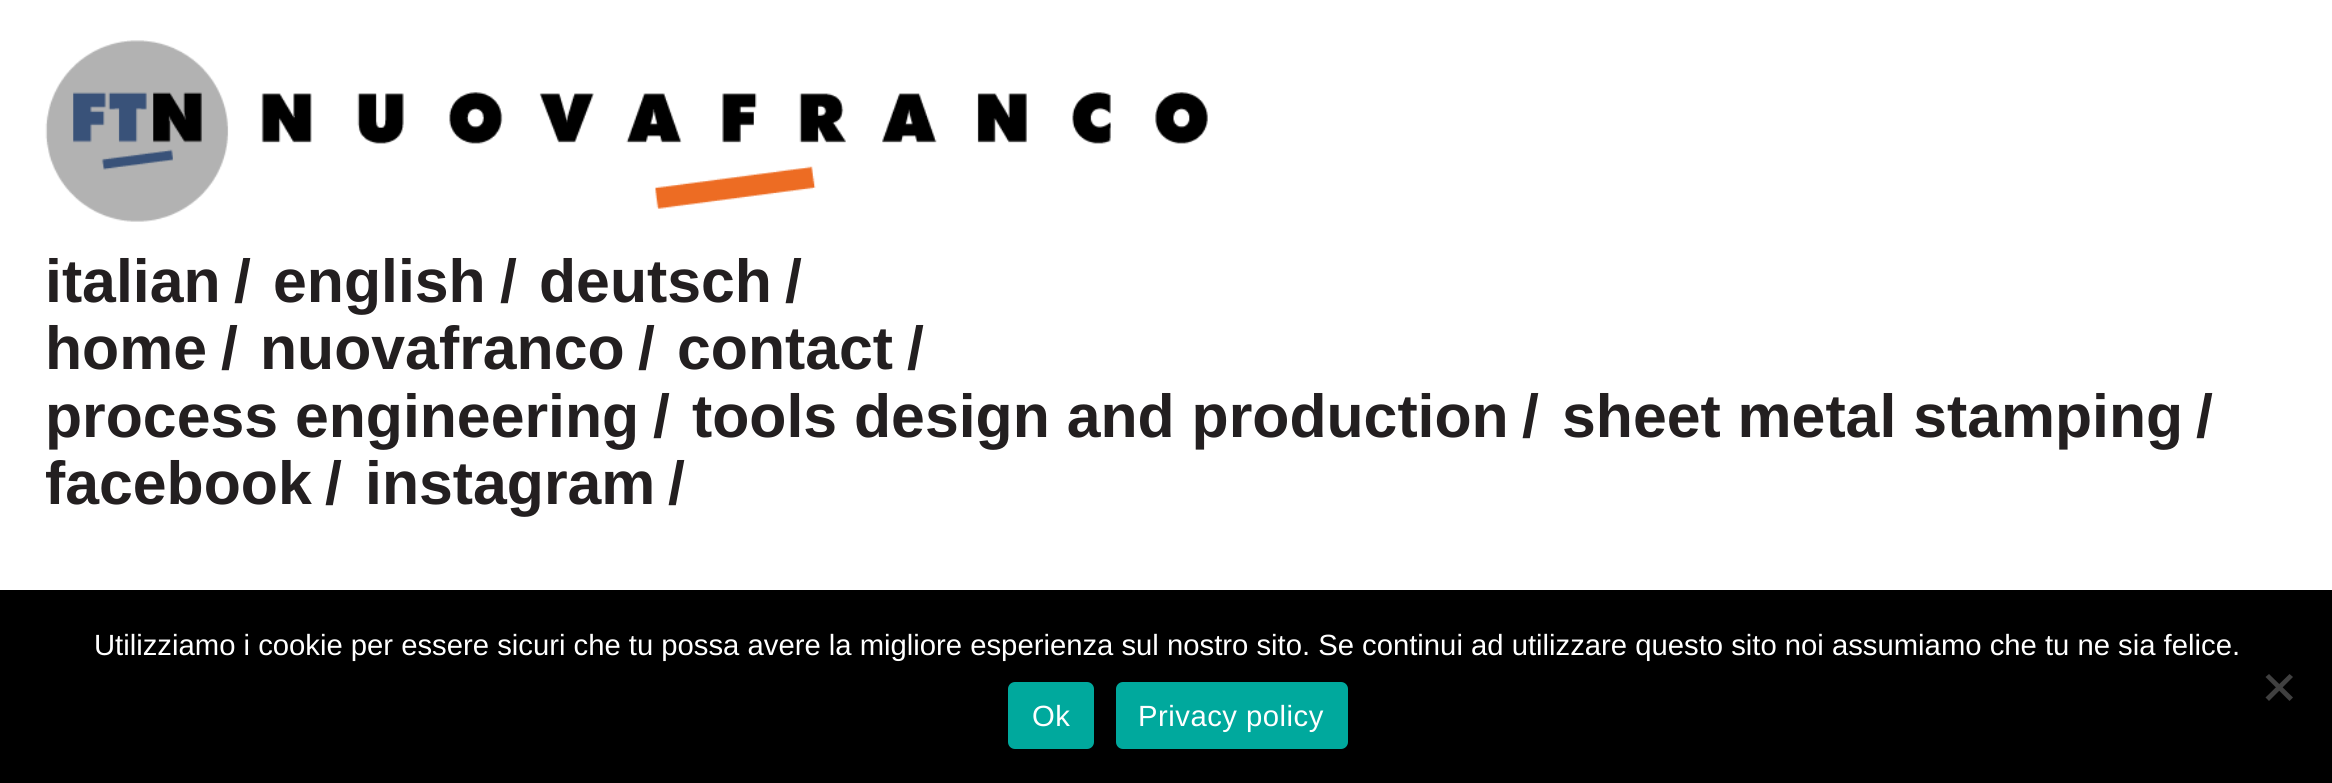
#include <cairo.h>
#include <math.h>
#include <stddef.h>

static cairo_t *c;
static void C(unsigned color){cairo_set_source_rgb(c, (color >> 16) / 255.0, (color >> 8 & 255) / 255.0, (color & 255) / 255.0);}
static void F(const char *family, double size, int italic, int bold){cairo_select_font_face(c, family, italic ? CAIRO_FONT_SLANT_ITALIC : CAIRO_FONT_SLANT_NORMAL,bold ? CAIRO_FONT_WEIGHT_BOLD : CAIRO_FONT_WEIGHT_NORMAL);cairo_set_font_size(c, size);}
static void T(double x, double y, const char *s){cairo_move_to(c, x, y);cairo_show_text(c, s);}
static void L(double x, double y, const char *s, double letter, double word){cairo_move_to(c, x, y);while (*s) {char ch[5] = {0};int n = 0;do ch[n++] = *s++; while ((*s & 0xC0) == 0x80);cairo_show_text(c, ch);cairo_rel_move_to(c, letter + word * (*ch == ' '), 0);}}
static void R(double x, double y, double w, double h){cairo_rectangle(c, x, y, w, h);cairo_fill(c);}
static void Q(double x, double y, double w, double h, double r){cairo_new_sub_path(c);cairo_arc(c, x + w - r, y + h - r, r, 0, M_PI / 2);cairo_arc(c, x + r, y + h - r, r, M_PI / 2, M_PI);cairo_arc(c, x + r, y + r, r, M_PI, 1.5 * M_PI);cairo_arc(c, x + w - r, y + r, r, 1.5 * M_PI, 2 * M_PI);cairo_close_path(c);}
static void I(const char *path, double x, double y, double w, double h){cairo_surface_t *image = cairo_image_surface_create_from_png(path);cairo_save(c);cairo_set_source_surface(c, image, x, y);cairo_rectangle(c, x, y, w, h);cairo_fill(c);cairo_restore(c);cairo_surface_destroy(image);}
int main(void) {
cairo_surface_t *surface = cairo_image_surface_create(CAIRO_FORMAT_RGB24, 2332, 783);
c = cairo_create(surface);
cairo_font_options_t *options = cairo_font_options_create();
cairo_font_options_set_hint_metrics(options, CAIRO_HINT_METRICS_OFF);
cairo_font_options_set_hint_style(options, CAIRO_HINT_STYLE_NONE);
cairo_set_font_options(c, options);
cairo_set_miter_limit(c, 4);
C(0xffffff);
cairo_paint(c);
I("1.png",45,40,1163,182);
F("Liberation Sans",60.75,0,1);
C(0x231f20);
T(45,302,"italian");
T(234,302,"/");
T(273,302,"english");
T(500,302,"/");
T(539,302,"deutsch");
T(785,302,"/");
T(45,369,"home");
T(221,369,"/");
T(260,369,"nuovafranco");
T(638,369,"/");
T(677,369,"contact");
T(907,369,"/");
T(45,437,"process engineering");
T(653,437,"/");
T(692,437,"tools design and production");
T(1522,437,"/");
T(1562,437,"sheet metal stamping");
T(2196,437,"/");
T(45,504,"facebook");
T(325,504,"/");
T(365,504,"instagram");
T(668,504,"/");
C(0x000000);
R(0,590,2332,193);
F("Liberation Sans",29.25,0,0);
C(0xffffff);
T(94,655,"Utilizziamo i cookie per essere sicuri che tu possa avere la migliore esperienza sul nostro sito. Se continui ad utilizzare questo sito noi assumiamo che tu ne sia felice.");
C(0x404040);
cairo_new_path(c);
cairo_move_to(c,2289.5,674);
cairo_line_to(c,2293,677);
cairo_line_to(c,2269,701);
cairo_line_to(c,2265.5,697.5);
cairo_close_path(c);
cairo_fill(c);
cairo_new_path(c);
cairo_move_to(c,2265.5,677);
cairo_line_to(c,2269,674);
cairo_line_to(c,2293,697.5);
cairo_line_to(c,2289.5,701);
cairo_close_path(c);
cairo_fill(c);
C(0x00a99d);
Q(1008,682,86,67,7);
cairo_fill(c);
C(0xffffff);
L(1032,726,"Ok",.5,0);
C(0x00a99d);
Q(1116,682,232,67,7);
cairo_fill(c);
C(0xffffff);
L(1138,726,"Privacy policy",.5,0);
cairo_surface_write_to_png(surface, "o.png");
cairo_font_options_destroy(options);
cairo_destroy(c);
cairo_surface_destroy(surface);
return 0;
}
